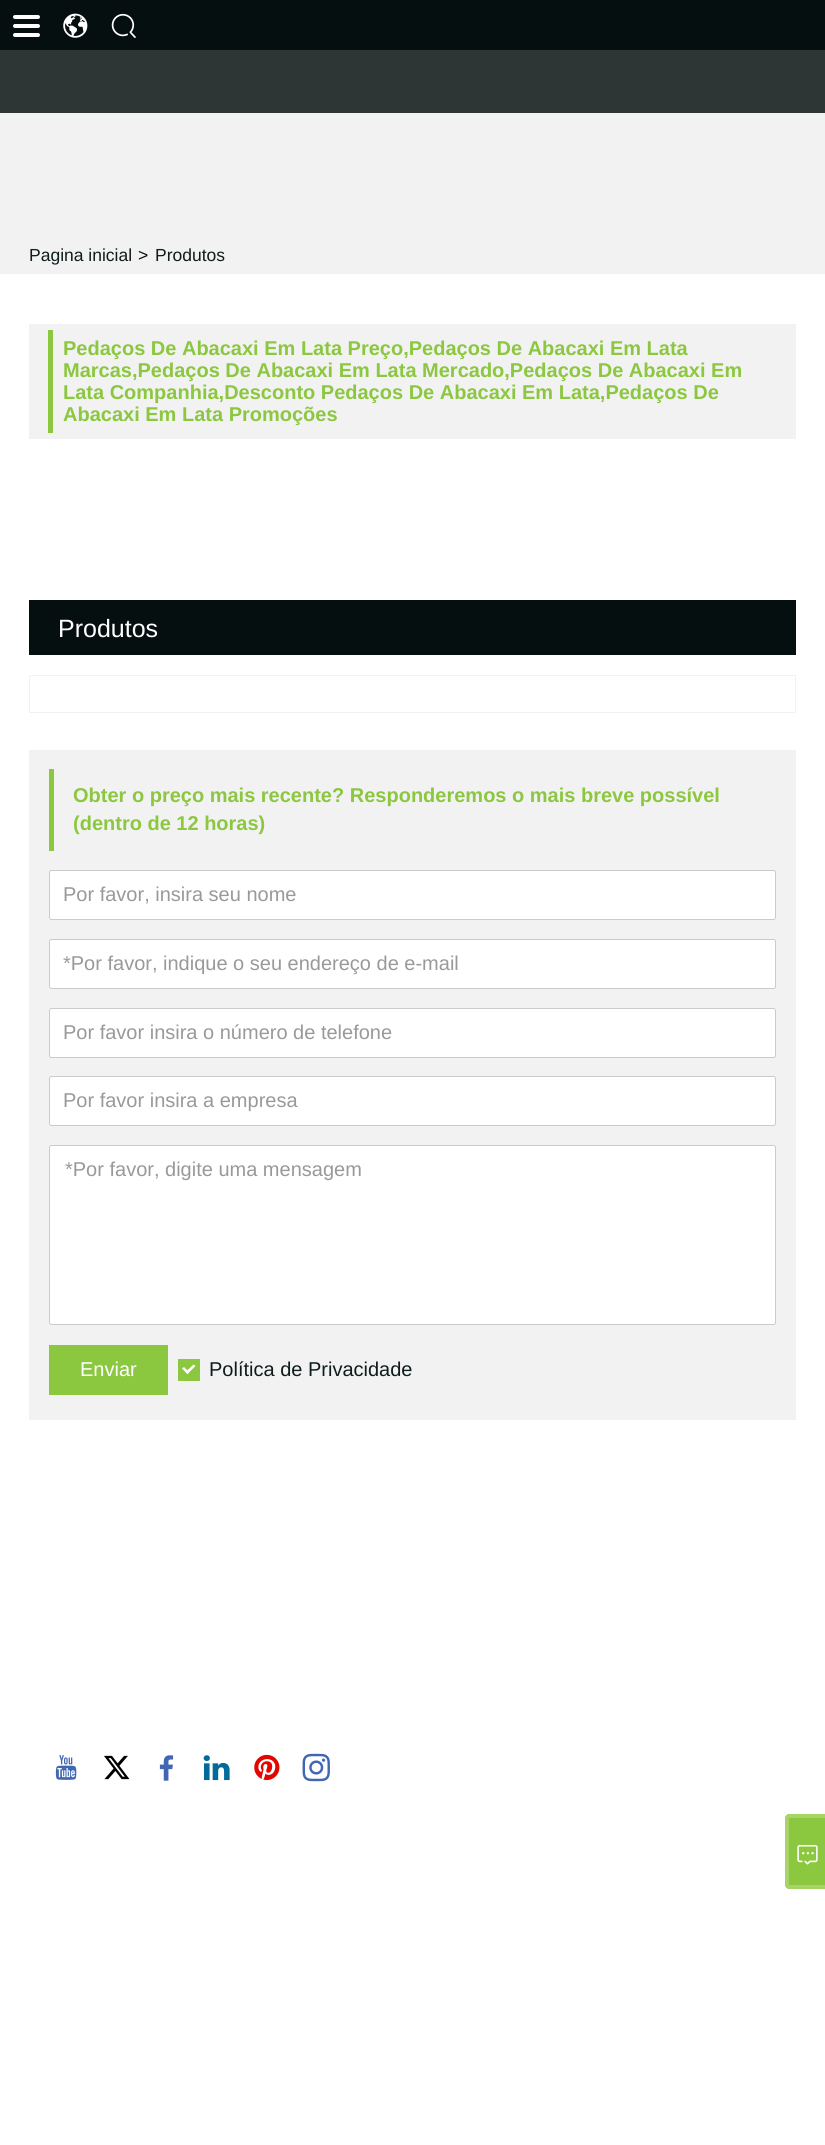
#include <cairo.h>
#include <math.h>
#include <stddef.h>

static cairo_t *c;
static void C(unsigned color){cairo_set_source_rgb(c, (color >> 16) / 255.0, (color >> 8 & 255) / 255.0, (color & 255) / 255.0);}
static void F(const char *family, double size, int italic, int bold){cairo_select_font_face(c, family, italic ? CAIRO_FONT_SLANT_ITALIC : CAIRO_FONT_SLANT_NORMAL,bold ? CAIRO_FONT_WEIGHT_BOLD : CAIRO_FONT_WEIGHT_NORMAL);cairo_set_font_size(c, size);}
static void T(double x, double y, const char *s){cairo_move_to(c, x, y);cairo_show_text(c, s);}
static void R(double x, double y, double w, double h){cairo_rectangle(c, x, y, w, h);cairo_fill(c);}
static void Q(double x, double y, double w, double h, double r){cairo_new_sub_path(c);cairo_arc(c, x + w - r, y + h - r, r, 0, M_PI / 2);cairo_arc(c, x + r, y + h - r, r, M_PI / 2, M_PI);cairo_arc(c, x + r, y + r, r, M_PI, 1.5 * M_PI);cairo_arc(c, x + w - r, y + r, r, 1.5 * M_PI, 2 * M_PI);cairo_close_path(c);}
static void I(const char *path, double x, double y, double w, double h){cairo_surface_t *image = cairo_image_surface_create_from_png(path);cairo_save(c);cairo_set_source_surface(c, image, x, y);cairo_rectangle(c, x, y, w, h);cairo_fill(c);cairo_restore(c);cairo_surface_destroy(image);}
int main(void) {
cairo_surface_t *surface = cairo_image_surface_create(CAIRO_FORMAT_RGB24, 825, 2145);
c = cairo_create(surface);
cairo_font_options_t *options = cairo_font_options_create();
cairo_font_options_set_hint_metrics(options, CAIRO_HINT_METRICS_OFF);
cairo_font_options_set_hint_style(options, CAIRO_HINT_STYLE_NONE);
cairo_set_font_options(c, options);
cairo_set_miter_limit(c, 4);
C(0xffffff);
cairo_paint(c);
C(0x2e3635);
R(0,50,825,63);
C(0x060f0f);
R(0,0,825,50);
C(0xffffff);
Q(13,15,27,4,2);
cairo_fill(c);
Q(13,24,27,4,2);
cairo_fill(c);
Q(13,33,27,4,2);
cairo_fill(c);
I("1.png",63,13,25,25);
I("2.png",111,13,25,25);
C(0xf2f2f2);
R(0,113,825,161);
F("Liberation Sans",17.5,0,0);
C(0x0f1c1c);
T(29,261,"Pagina inicial");
C(0x060f0f);
T(138,261,">");
C(0x0f1c1c);
T(155,261,"Produtos");
C(0xf2f2f2);
R(29,324,767,115);
C(0x8cc740);
R(48,330,5,103);
F("Liberation Sans",20,0,1);
T(63,355,"Pedaços De Abacaxi Em Lata Preço,Pedaços De Abacaxi Em Lata");
T(63,377,"Marcas,Pedaços De Abacaxi Em Lata Mercado,Pedaços De Abacaxi Em");
T(63,399,"Lata Companhia,Desconto Pedaços De Abacaxi Em Lata,Pedaços De");
T(63,421,"Abacaxi Em Lata Promoções");
C(0x060f0f);
R(29,600,767,55);
F("Liberation Sans",25,0,0);
C(0xffffff);
T(58,637,"Produtos");
cairo_rectangle(c,29.5,675.5,766,37);
C(0xf2f2f2);
cairo_set_line_width(c,1);
cairo_stroke(c);
R(29,750,767,670);
C(0x8cc740);
R(49,769,5,82);
F("Liberation Sans",20,0,1);
T(73,802,"Obter o preço mais recente? Responderemos o mais breve possível");
T(73,830,"(dentro de 12 horas)");
C(0xffffff);
Q(49.5,870.5,726,49,2);
cairo_fill_preserve(c);
C(0xcbcbcb);
cairo_stroke(c);
F("Liberation Sans",20,0,0);
C(0x999999);
T(63,901,"Por favor, insira seu nome");
C(0xffffff);
Q(49.5,939.5,726,49,2);
cairo_fill_preserve(c);
C(0xcbcbcb);
cairo_stroke(c);
C(0x999999);
T(63,970,"*Por favor, indique o seu endereço de e-mail");
C(0xffffff);
Q(49.5,1008.5,726,49,2);
cairo_fill_preserve(c);
C(0xcbcbcb);
cairo_stroke(c);
C(0x999999);
T(63,1039,"Por favor insira o número de telefone");
C(0xffffff);
Q(49.5,1076.5,726,49,2);
cairo_fill_preserve(c);
C(0xcbcbcb);
cairo_stroke(c);
C(0x999999);
T(63,1107,"Por favor insira a empresa");
C(0xffffff);
Q(49.5,1145.5,726,179,2);
cairo_fill_preserve(c);
C(0xcbcbcb);
cairo_stroke(c);
C(0x999999);
T(65,1176,"*Por favor, digite uma mensagem");
C(0x8cc740);
R(49,1345,119,50);
C(0xffffff);
T(80,1376,"Enviar");
C(0x8cc740);
R(178,1359,22,22);
C(0x0f1c1c);
T(209,1376,"Política de Privacidade");
C(0xffffff);
cairo_new_path(c);
cairo_move_to(c,185.5,1372);
cairo_line_to(c,193.5,1364.5);
cairo_line_to(c,195.5,1366);
cairo_line_to(c,187.5,1374);
cairo_close_path(c);
cairo_fill(c);
cairo_new_path(c);
cairo_move_to(c,182,1368.5);
cairo_line_to(c,184,1367);
cairo_line_to(c,189,1372);
cairo_line_to(c,187.5,1374);
cairo_close_path(c);
cairo_fill(c);
I("3.png",55,1755,22,25);
I("4.png",104,1755,26,25);
I("5.png",159,1755,15,26);
I("6.png",203,1755,27,26);
I("7.png",254,1754,26,27);
I("8.png",302,1753,28,29);
C(0x8cc740);
cairo_new_path(c);
cairo_move_to(c,790,1814);
cairo_line_to(c,825,1814);
cairo_line_to(c,825,1889);
cairo_line_to(c,790,1889);
cairo_curve_to(c,787,1889,785,1887,785,1884);
cairo_line_to(c,785,1819);
cairo_curve_to(c,785,1816,787,1814,790,1814);
cairo_close_path(c);
cairo_fill(c);
C(0xa8d466);
cairo_set_fill_rule(c,CAIRO_FILL_RULE_EVEN_ODD);
cairo_new_path(c);
cairo_move_to(c,790,1814);
cairo_line_to(c,825,1814);
cairo_line_to(c,825,1889);
cairo_line_to(c,790,1889);
cairo_curve_to(c,787,1889,785,1887,785,1884);
cairo_line_to(c,785,1819);
cairo_curve_to(c,785,1816,787,1814,790,1814);
cairo_close_path(c);
cairo_move_to(c,790,1818);
cairo_line_to(c,825,1818);
cairo_line_to(c,825,1885);
cairo_line_to(c,790,1885);
cairo_curve_to(c,789,1885,789,1884,789,1884);
cairo_line_to(c,789,1819);
cairo_curve_to(c,789,1818,789,1818,790,1818);
cairo_close_path(c);
cairo_fill(c);
I("9.png",797,1845,21,20);
cairo_surface_write_to_png(surface, "o.png");
cairo_font_options_destroy(options);
cairo_destroy(c);
cairo_surface_destroy(surface);
return 0;
}
